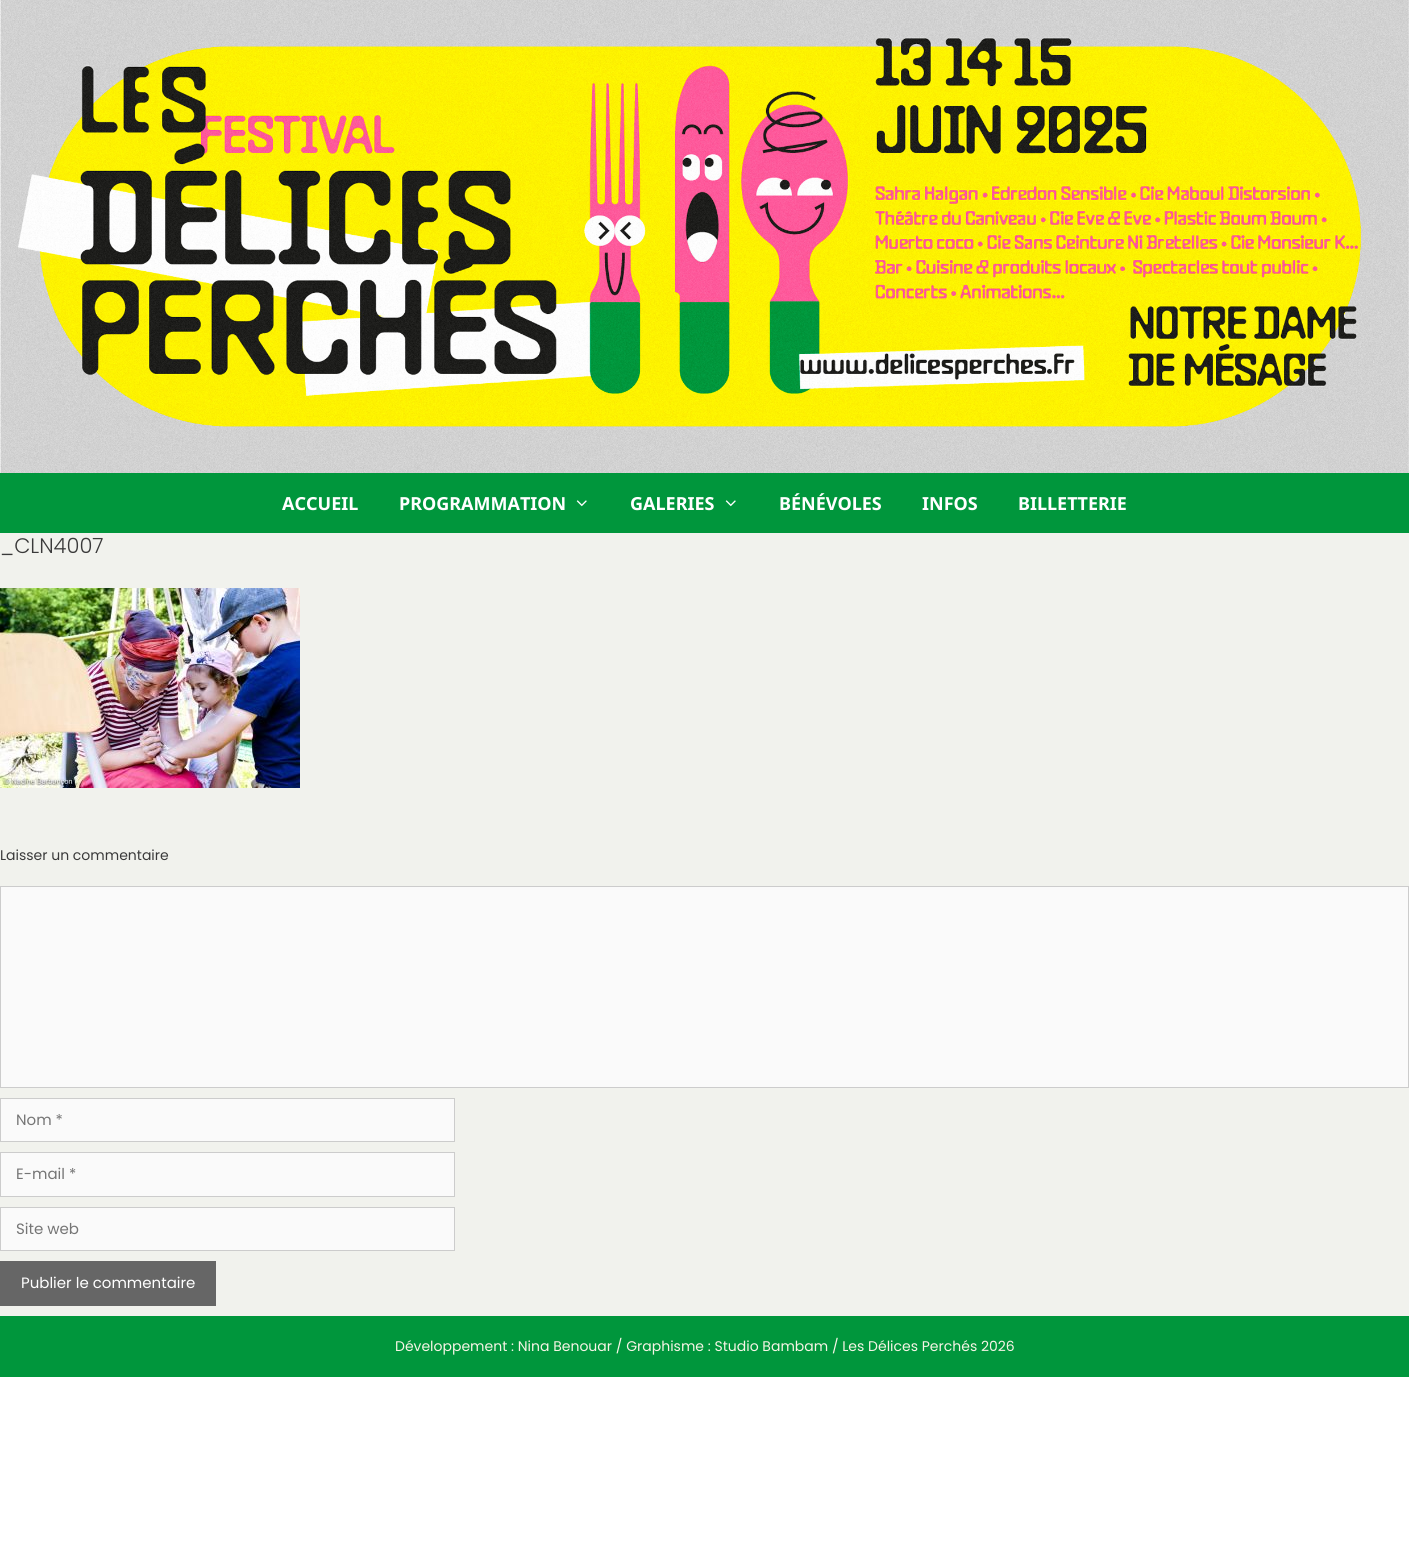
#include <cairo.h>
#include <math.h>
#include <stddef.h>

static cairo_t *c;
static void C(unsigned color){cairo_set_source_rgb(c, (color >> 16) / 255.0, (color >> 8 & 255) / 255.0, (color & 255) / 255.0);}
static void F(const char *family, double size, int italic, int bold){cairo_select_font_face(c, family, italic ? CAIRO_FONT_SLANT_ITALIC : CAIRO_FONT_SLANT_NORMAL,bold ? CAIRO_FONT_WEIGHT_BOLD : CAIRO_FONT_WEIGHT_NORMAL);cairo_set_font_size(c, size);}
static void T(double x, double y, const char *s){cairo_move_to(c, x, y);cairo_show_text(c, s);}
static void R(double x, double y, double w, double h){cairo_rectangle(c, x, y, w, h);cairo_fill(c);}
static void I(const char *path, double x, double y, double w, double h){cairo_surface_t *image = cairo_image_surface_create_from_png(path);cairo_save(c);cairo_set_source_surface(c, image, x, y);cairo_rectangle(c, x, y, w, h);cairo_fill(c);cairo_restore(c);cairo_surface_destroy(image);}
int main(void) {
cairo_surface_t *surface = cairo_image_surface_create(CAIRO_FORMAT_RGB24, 1409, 1556);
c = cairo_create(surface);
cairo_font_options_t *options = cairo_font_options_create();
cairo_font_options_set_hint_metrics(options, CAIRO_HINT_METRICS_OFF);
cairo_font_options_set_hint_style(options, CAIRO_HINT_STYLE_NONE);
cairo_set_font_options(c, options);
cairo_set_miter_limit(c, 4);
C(0xffffff);
cairo_paint(c);
I("1.png",0,0,1409,473);
C(0x00963c);
R(0,473,1409,60);
F("Noto Sans",18,0,1);
C(0xffffff);
T(282,510,"ACCUEIL");
T(399,510,"PROGRAMMATION");
I("2.png",576,500,11,7);
T(630,510,"GALERIES");
I("2.png",725,500,11,7);
T(779,510,"BÉNÉVOLES");
T(922,510,"INFOS");
T(1018,510,"BILLETTERIE");
C(0xf1f2ed);
R(0,533,1409,783);
F("Poppins Light",21,0,0);
C(0x3a3a3a);
T(0,553,"_CLN4007");
I("3.png",0,588,300,200);
F("Poppins",14,0,0);
T(0,860,"Laisser un commentaire");
C(0xfafafa);
cairo_rectangle(c,.5,886.5,1408,201);
cairo_fill_preserve(c);
C(0xcccccc);
cairo_set_line_width(c,1);
cairo_stroke(c);
C(0xfafafa);
cairo_rectangle(c,.5,1098.5,454,43);
cairo_fill_preserve(c);
C(0xcccccc);
cairo_stroke(c);
F("Poppins",15,0,0);
C(0x757575);
T(16,1125,"Nom *");
C(0xfafafa);
cairo_rectangle(c,.5,1152.5,454,44);
cairo_fill_preserve(c);
C(0xcccccc);
cairo_stroke(c);
C(0x757575);
T(16,1179,"E-mail *");
C(0xfafafa);
cairo_rectangle(c,.5,1207.5,454,43);
cairo_fill_preserve(c);
C(0xcccccc);
cairo_stroke(c);
C(0x757575);
T(16,1234,"Site web");
C(0x666666);
R(0,1261,216,45);
C(0xffffff);
T(21,1288,"Publier le commentaire");
C(0x00963c);
R(0,1316,1409,61);
F("Poppins",14,0,0);
C(0xf7f4e6);
T(395,1351,"Développement : Nina Benouar / Graphisme : Studio Bambam / Les Délices Perchés 2026");
cairo_surface_write_to_png(surface, "o.png");
cairo_font_options_destroy(options);
cairo_destroy(c);
cairo_surface_destroy(surface);
return 0;
}
